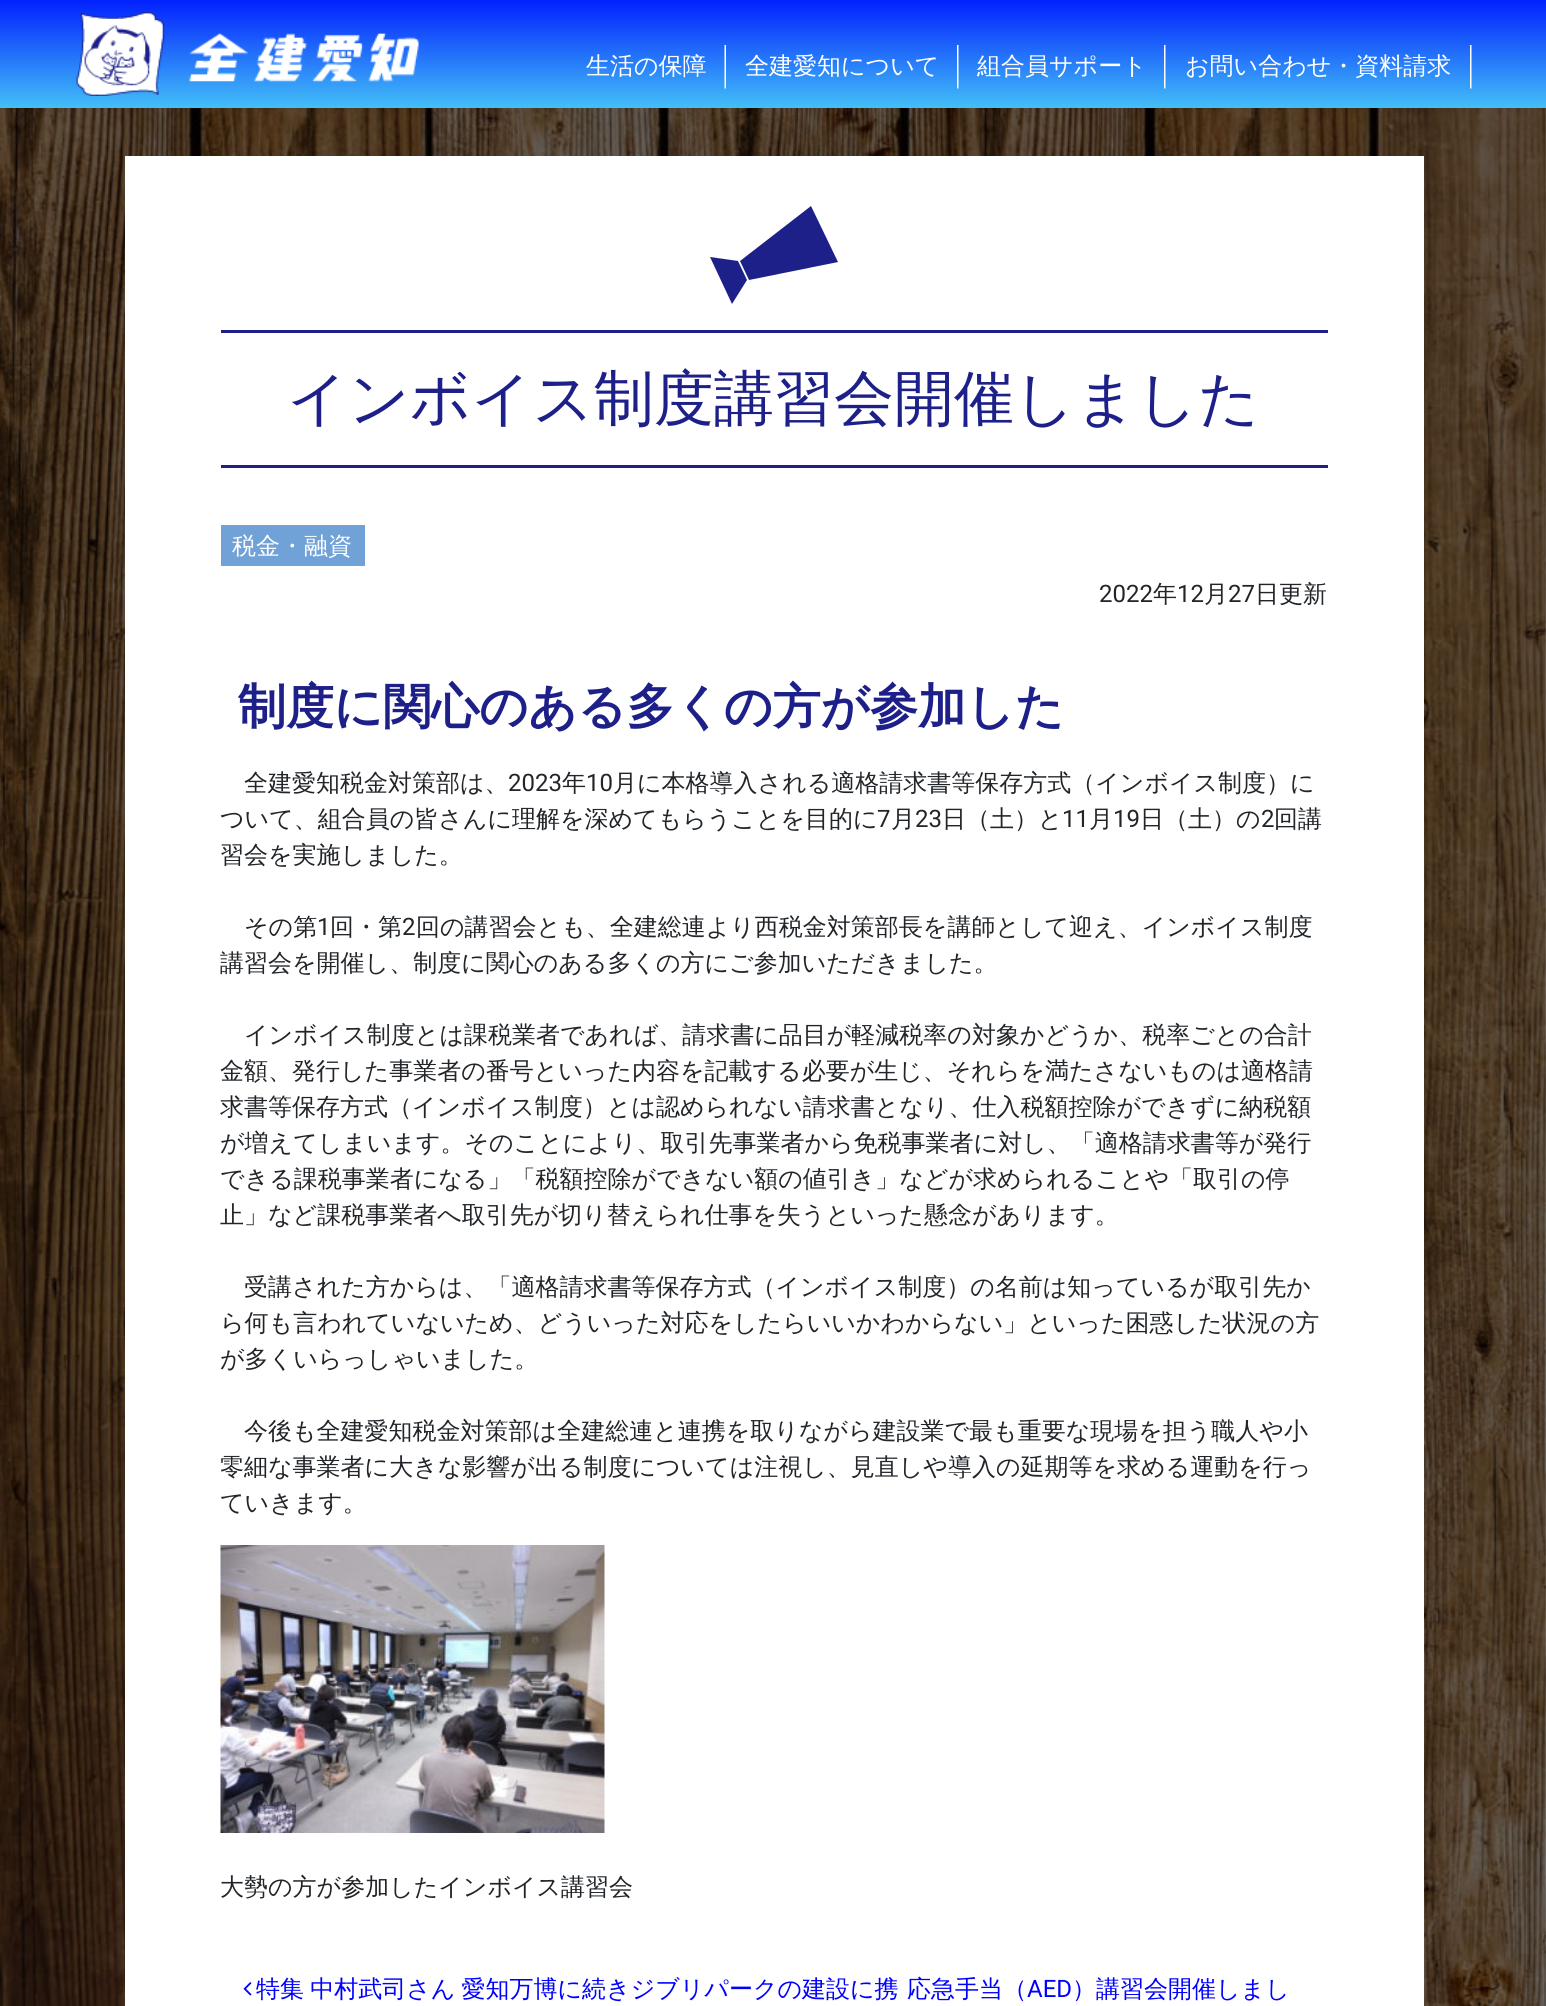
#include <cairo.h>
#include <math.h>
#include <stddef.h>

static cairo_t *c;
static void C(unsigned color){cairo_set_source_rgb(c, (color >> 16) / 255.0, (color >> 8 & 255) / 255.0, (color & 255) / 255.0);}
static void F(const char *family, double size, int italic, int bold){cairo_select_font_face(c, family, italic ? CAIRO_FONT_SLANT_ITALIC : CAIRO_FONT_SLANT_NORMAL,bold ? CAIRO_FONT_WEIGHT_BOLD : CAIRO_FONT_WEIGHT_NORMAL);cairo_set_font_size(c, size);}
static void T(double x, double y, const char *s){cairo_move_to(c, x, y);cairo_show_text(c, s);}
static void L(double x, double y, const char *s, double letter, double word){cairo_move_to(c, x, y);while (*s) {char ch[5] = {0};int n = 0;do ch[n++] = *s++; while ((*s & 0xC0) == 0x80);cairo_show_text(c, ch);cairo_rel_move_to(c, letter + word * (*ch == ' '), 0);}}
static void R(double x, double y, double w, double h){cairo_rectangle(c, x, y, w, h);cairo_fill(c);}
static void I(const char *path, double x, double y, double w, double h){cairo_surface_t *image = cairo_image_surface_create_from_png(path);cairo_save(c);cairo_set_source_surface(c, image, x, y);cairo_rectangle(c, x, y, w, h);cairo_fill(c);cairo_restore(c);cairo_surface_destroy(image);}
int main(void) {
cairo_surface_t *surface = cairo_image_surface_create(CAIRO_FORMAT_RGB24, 1546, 2006);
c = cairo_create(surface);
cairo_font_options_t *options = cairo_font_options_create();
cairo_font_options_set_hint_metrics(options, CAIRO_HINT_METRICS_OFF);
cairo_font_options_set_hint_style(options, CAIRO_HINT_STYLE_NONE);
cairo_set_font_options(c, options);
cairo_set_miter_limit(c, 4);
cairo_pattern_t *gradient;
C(0xffffff);
cairo_paint(c);
gradient = cairo_pattern_create_linear(773,0,773,108);
cairo_pattern_add_color_stop_rgba(gradient,0,0.008,0,0.141,1);
cairo_pattern_add_color_stop_rgba(gradient,0,0.008,0.129,0.996,1);
cairo_pattern_add_color_stop_rgba(gradient,1,0.263,0.749,0.969,1);
cairo_set_source(c,gradient);
cairo_pattern_destroy(gradient);
R(0,0,1546,108);
I("1.png",76,12,343,84);
I("2.png",724,45,2,44);
F("WenQuanYi Zen Hei Medium",24,0,0);
C(0xffffff);
T(586,74,"生活の保障");
I("3.png",957,45,2,44);
T(745,74,"全建愛知について");
I("3.png",1164,45,2,44);
T(977,74,"組合員サポート");
I("3.png",1470,45,2,44);
T(1185,74,"お問い合わせ・資料請求");
I("4.png",0,108,1546,1898);
R(125,156,1299,1850);
C(0x1d2088);
cairo_new_path(c);
cairo_move_to(c,838,262);
cairo_line_to(c,749,280);
cairo_line_to(c,740,261);
cairo_line_to(c,811,206);
cairo_close_path(c);
cairo_fill(c);
cairo_new_path(c);
cairo_move_to(c,732,304);
cairo_line_to(c,747,280);
cairo_line_to(c,738,261);
cairo_line_to(c,710,257);
cairo_close_path(c);
cairo_fill(c);
R(221,330,1107,3);
R(221,465,1107,3);
F("WenQuanYi Zen Hei Medium",60,0,0);
T(287,419,"インボイス制度講習会開催しました");
C(0x70a1d7);
R(221,525,144,41);
F("WenQuanYi Zen Hei Medium",24,0,0);
C(0xffffff);
T(232,554,"税金・融資");
F("Roboto",24,0,0);
C(0x212529);
T(1099,602,"2022");
F("WenQuanYi Zen Hei Medium",24,0,0);
T(1153,602,"年");
F("Roboto",24,0,0);
T(1177,602,"12");
F("WenQuanYi Zen Hei Medium",24,0,0);
T(1204,602,"月");
F("Roboto",24,0,0);
T(1228,602,"27");
F("WenQuanYi Zen Hei Medium",24,0,0);
T(1255,602,"日更新");
F("WenQuanYi Zen Hei",48,0,1);
C(0x1d2088);
T(238,723,"制度に関心のある多くの方が参加した");
F("WenQuanYi Zen Hei Medium",24,0,0);
C(0x212529);
T(244,791,"全建愛知税金対策部は、");
F("Roboto",24,0,0);
T(508,791,"2023");
F("WenQuanYi Zen Hei Medium",24,0,0);
T(562,791,"年");
F("Roboto",24,0,0);
T(586,791,"10");
F("WenQuanYi Zen Hei Medium",24,0,0);
T(613,791,"月に本格導入される適格請求書等保存方式（インボイス制度）に");
T(220,827,"ついて、組合員の皆さんに理解を深めてもらうことを目的に");
F("Roboto",24,0,0);
T(877,827,"7");
F("WenQuanYi Zen Hei Medium",24,0,0);
T(891,827,"月");
F("Roboto",24,0,0);
T(915,827,"23");
F("WenQuanYi Zen Hei Medium",24,0,0);
T(942,827,"日（土）と");
F("Roboto",24,0,0);
T(1062,827,"11");
F("WenQuanYi Zen Hei Medium",24,0,0);
T(1089,827,"月");
F("Roboto",24,0,0);
T(1113,827,"19");
F("WenQuanYi Zen Hei Medium",24,0,0);
T(1140,827,"日（土）の");
F("Roboto",24,0,0);
T(1261,827,"2");
F("WenQuanYi Zen Hei Medium",24,0,0);
T(1274,827,"回講");
T(220,863,"習会を実施しました。");
T(244,935,"その第");
F("Roboto",24,0,0);
T(317,935,"1");
F("WenQuanYi Zen Hei Medium",24,0,0);
T(330,935,"回・第");
F("Roboto",24,0,0);
T(402,935,"2");
F("WenQuanYi Zen Hei Medium",24,0,0);
T(416,935,"回の講習会とも、全建総連より西税金対策部長を講師として迎え、インボイス制度");
T(220,971,"講習会を開催し、制度に関心のある多くの方にご参加いただきました。");
T(244,1043,"インボイス制度とは課税業者であれば、請求書に品目が軽減税率の対象かどうか、税率ごとの合計");
T(220,1079,"金額、発行した事業者の番号といった内容を記載する必要が生じ、それらを満たさないものは適格請");
T(220,1115,"求書等保存方式（インボイス制度）とは認められない請求書となり、仕入税額控除ができずに納税額");
T(220,1151,"が増えてしまいます。そのことにより、取引先事業者から免税事業者に対し、「適格請求書等が発行");
T(220,1187,"できる課税事業者になる」「税額控除ができない額の値引き」などが求められることや「取引の停");
T(220,1223,"止」など課税事業者へ取引先が切り替えられ仕事を失うといった懸念があります。");
T(244,1295,"受講された方からは、「適格請求書等保存方式（インボイス制度）の名前は知っているが取引先か");
T(220,1331,"ら何も言われていないため、どういった対応をしたらいいかわからない」といった困惑した状況の方");
T(220,1367,"が多くいらっしゃいました。");
T(244,1439,"今後も全建愛知税金対策部は全建総連と連携を取りながら建設業で最も重要な現場を担う職人や小");
T(220,1475,"零細な事業者に大きな影響が出る制度については注視し、見直しや導入の延期等を求める運動を行っ");
T(220,1511,"ていきます。");
I("5.png",220,1545,385,288);
T(220,1895,"大勢の方が参加したインボイス講習会");
I("6.png",243,1982,9,14);
C(0x0000ff);
L(256,1997,"特集 中村武司さん 愛知万博に続きジブリパークの建設に携",0,-1);
T(907,1997,"応急手当（");
F("Roboto",24,0,0);
T(1027,1997,"AED");
F("WenQuanYi Zen Hei Medium",24,0,0);
T(1072,1997,"）講習会開催しまし");
cairo_surface_write_to_png(surface, "o.png");
cairo_font_options_destroy(options);
cairo_destroy(c);
cairo_surface_destroy(surface);
return 0;
}
